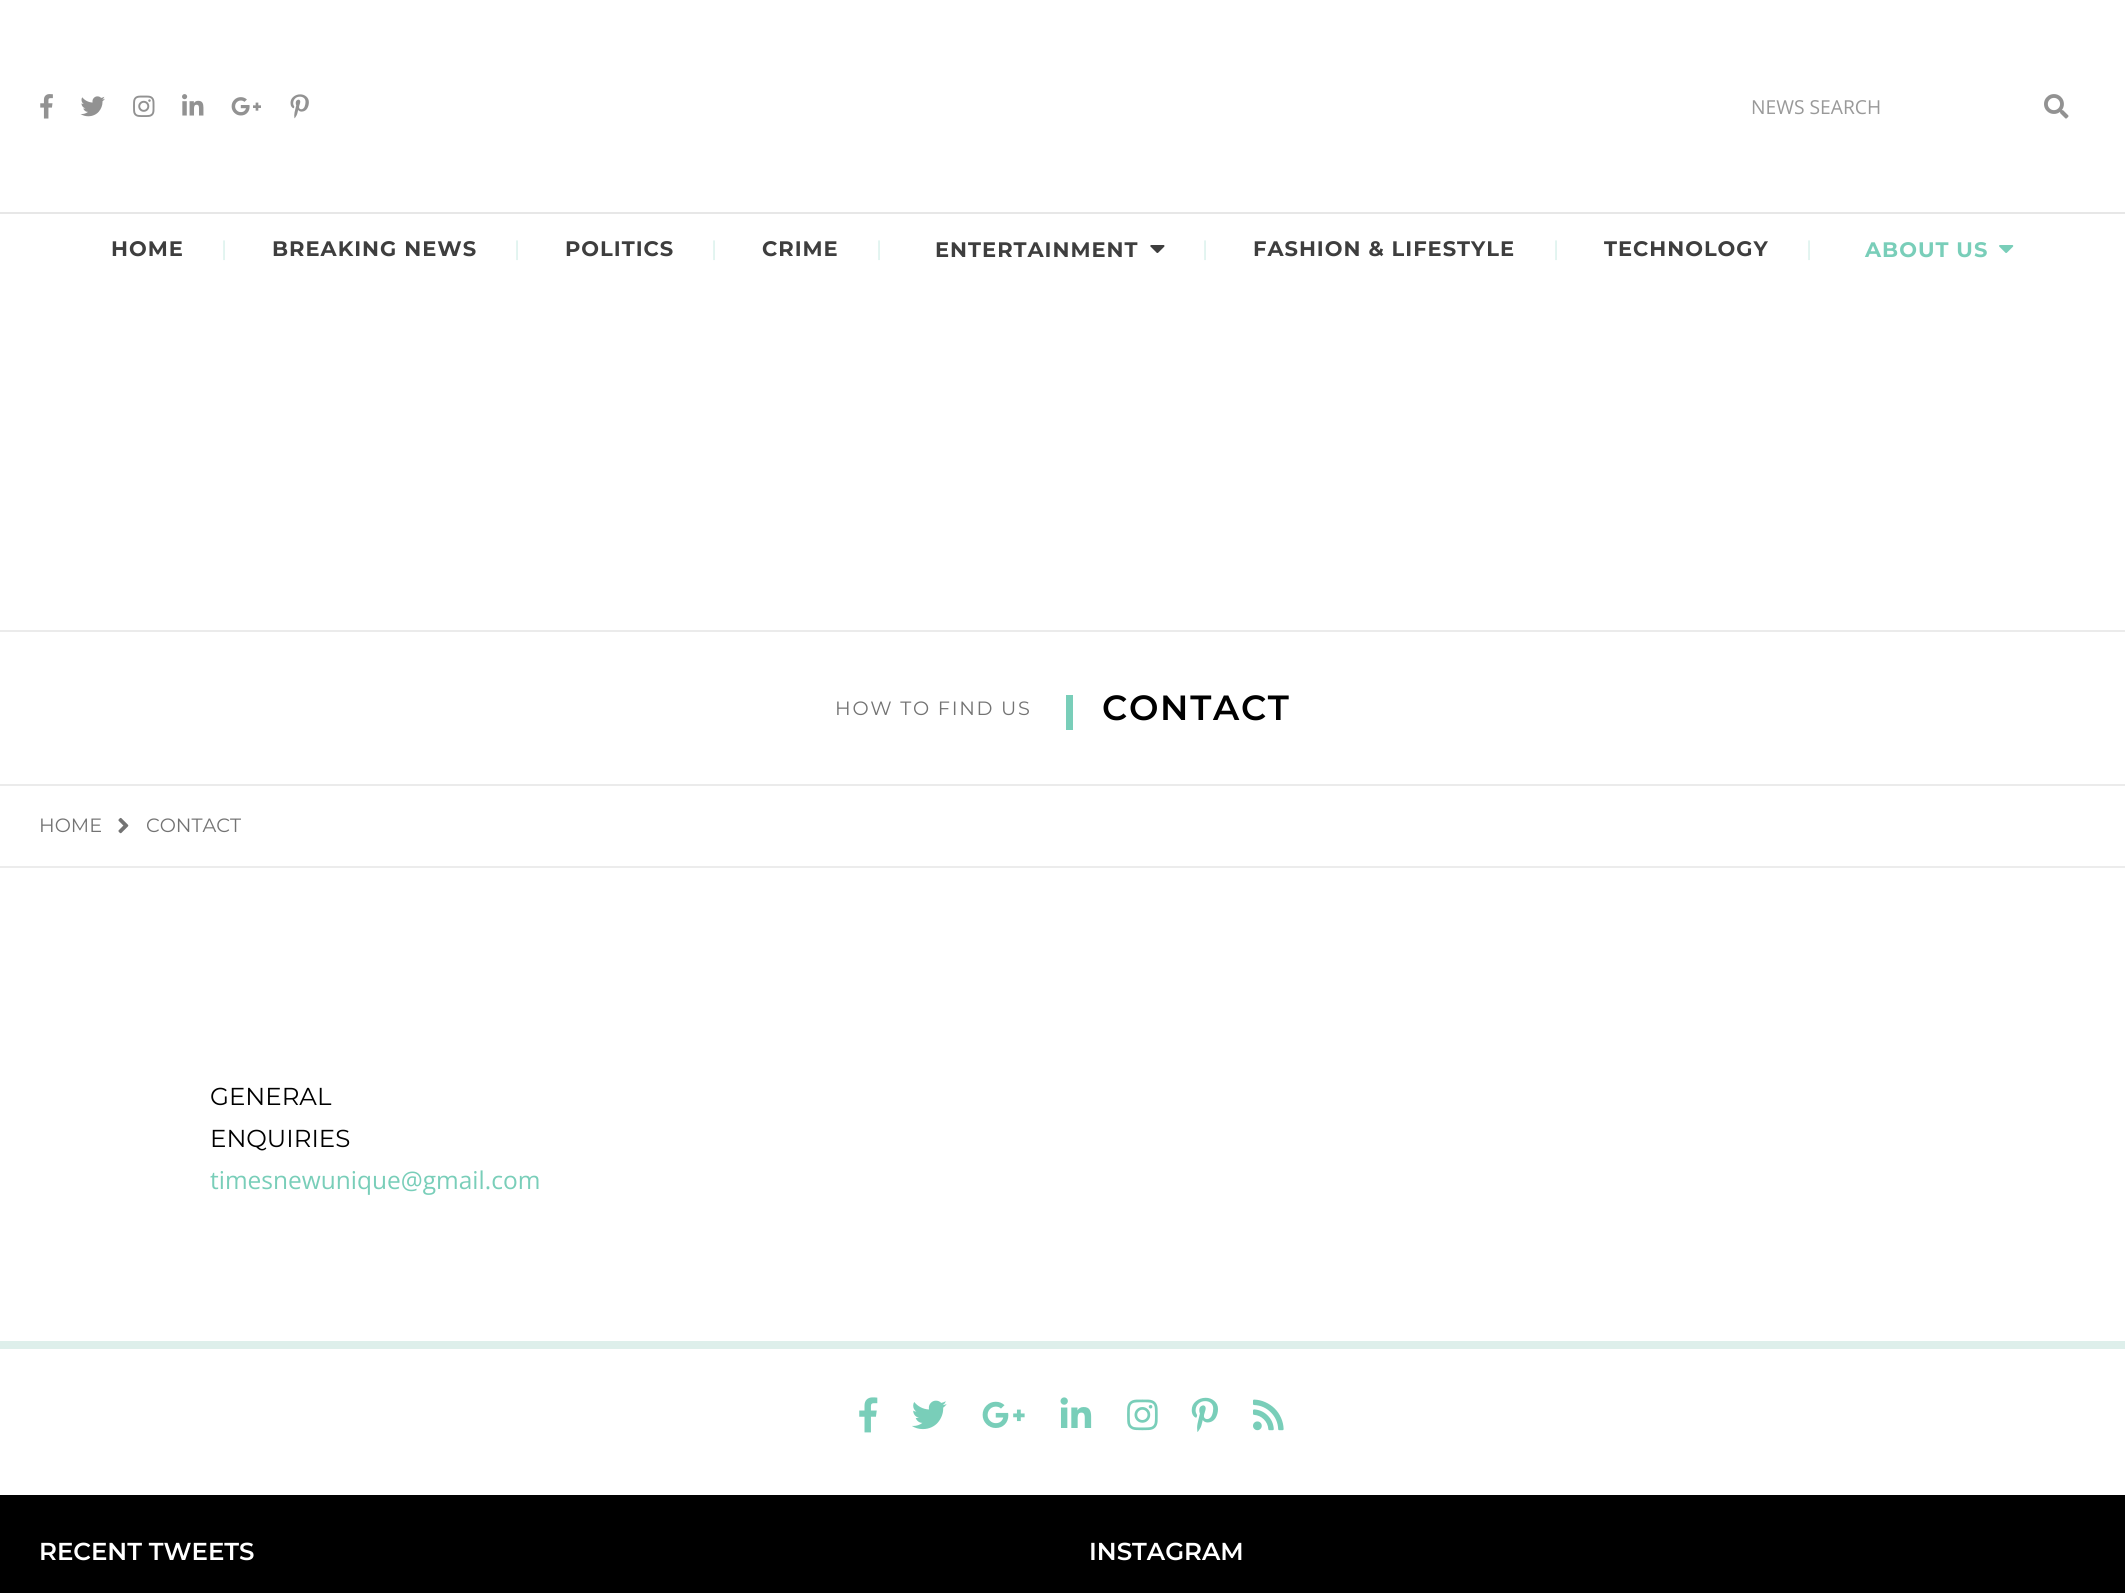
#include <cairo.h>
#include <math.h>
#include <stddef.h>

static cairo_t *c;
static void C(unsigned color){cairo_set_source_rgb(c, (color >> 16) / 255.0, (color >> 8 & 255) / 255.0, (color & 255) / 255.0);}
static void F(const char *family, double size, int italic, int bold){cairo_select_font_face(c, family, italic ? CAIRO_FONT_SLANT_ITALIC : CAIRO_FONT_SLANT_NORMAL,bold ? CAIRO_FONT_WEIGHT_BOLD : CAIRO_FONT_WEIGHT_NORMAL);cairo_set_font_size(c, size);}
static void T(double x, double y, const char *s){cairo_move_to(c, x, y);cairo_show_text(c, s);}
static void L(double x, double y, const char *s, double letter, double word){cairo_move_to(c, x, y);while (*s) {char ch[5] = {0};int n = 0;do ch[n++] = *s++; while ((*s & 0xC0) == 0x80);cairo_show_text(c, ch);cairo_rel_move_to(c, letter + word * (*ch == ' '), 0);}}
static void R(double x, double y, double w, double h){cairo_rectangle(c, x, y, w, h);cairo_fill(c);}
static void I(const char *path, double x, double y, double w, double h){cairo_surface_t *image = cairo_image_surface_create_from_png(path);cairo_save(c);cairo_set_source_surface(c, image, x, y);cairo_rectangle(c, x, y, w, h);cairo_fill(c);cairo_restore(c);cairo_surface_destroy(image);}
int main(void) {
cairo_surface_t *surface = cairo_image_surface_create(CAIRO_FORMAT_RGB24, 2125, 1593);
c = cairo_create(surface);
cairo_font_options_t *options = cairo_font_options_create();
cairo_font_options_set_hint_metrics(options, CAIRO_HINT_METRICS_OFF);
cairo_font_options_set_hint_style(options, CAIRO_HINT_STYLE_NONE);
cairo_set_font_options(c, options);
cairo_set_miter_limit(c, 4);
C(0xffffff);
cairo_paint(c);
I("1.png",40,94,13,25);
I("2.png",80,96,25,21);
I("3.png",133,95,22,22);
I("4.png",182,94,22,22);
I("5.png",231,97,30,19);
I("6.png",290,94,19,25);
F("Open Sans",19.25,0,0);
C(0x999999);
T(1751,114,"NEWS SEARCH");
I("7.png",2044,94,25,25);
C(0xe7e7e7);
R(0,212,2125,2);
F("Montserrat",21,0,1);
C(0x3e3e3e);
L(111,256,"HOME",1,0);
F("Montserrat Thin",21,0,0);
C(0x79ceb9);
L(221,256,"|",1,0);
F("Montserrat",21,0,1);
C(0x3e3e3e);
L(272,256,"BREAKING NEWS",1,0);
F("Montserrat Thin",21,0,0);
C(0x79ceb9);
L(514,256,"|",1,0);
F("Montserrat",21,0,1);
C(0x3e3e3e);
L(565,256,"POLITICS",1,0);
F("Montserrat Thin",21,0,0);
C(0x79ceb9);
L(711,256,"|",1,0);
F("Montserrat",21,0,1);
C(0x3e3e3e);
L(762,256,"CRIME",1,0);
F("Montserrat Thin",21,0,0);
C(0x79ceb9);
L(876,256,"|",1,0);
F("Montserrat",21,0,1);
C(0x3e3e3e);
L(935,257,"ENTERTAINMENT",1,0);
I("8.png",1150,245,15,8);
F("Montserrat Thin",21,0,0);
C(0x79ceb9);
L(1202,256,"|",1,0);
F("Montserrat",21,0,1);
C(0x3e3e3e);
L(1253,256,"FASHION & LIFESTYLE",1,0);
F("Montserrat Thin",21,0,0);
C(0x79ceb9);
L(1553,256,"|",1,0);
F("Montserrat",21,0,1);
C(0x3e3e3e);
L(1604,256,"TECHNOLOGY",1,0);
F("Montserrat Thin",21,0,0);
C(0x79ceb9);
L(1806,256,"|",1,0);
F("Montserrat",21,0,1);
L(1865,257,"ABOUT US",1,0);
I("9.png",1999,245,15,8);
C(0xebebeb);
R(0,630,2125,2);
R(0,784,2125,2);
F("Montserrat",19.25,0,0);
C(0x737373);
L(835,715,"HOW TO FIND US",1.75,0);
C(0x79ceb9);
R(1066,695,7,35);
F("Montserrat SemiBold",35,0,0);
C(0x000000);
L(1102,720,"CONTACT",1.75,0);
C(0xececec);
R(0,866,2125,2);
F("Montserrat",19.25,0,0);
C(0x737373);
T(39,832,"HOME");
I("10.png",118,817,11,17);
T(146,832,"CONTACT");
F("Montserrat",24.5,0,0);
C(0x000000);
T(210,1105,"GENERAL");
T(210,1147,"ENQUIRIES");
F("Open Sans",24.5,0,0);
C(0x79ceb9);
T(210,1189,"timesnewunique@gmail.com");
C(0xdeefeb);
R(0,1341,2125,8);
I("11.png",859,1397,19,36);
I("12.png",912,1400,35,30);
I("13.png",982,1401,43,27);
I("14.png",1060,1397,32,31);
I("15.png",1127,1399,31,32);
I("16.png",1191,1397,27,35);
I("17.png",1253,1399,31,32);
C(0x000000);
R(0,1495,2125,98);
F("Montserrat SemiBold",24.5,0,0);
C(0xffffff);
T(39,1560,"RECENT TWEETS");
T(1089,1560,"INSTAGRAM");
cairo_surface_write_to_png(surface, "o.png");
cairo_font_options_destroy(options);
cairo_destroy(c);
cairo_surface_destroy(surface);
return 0;
}
